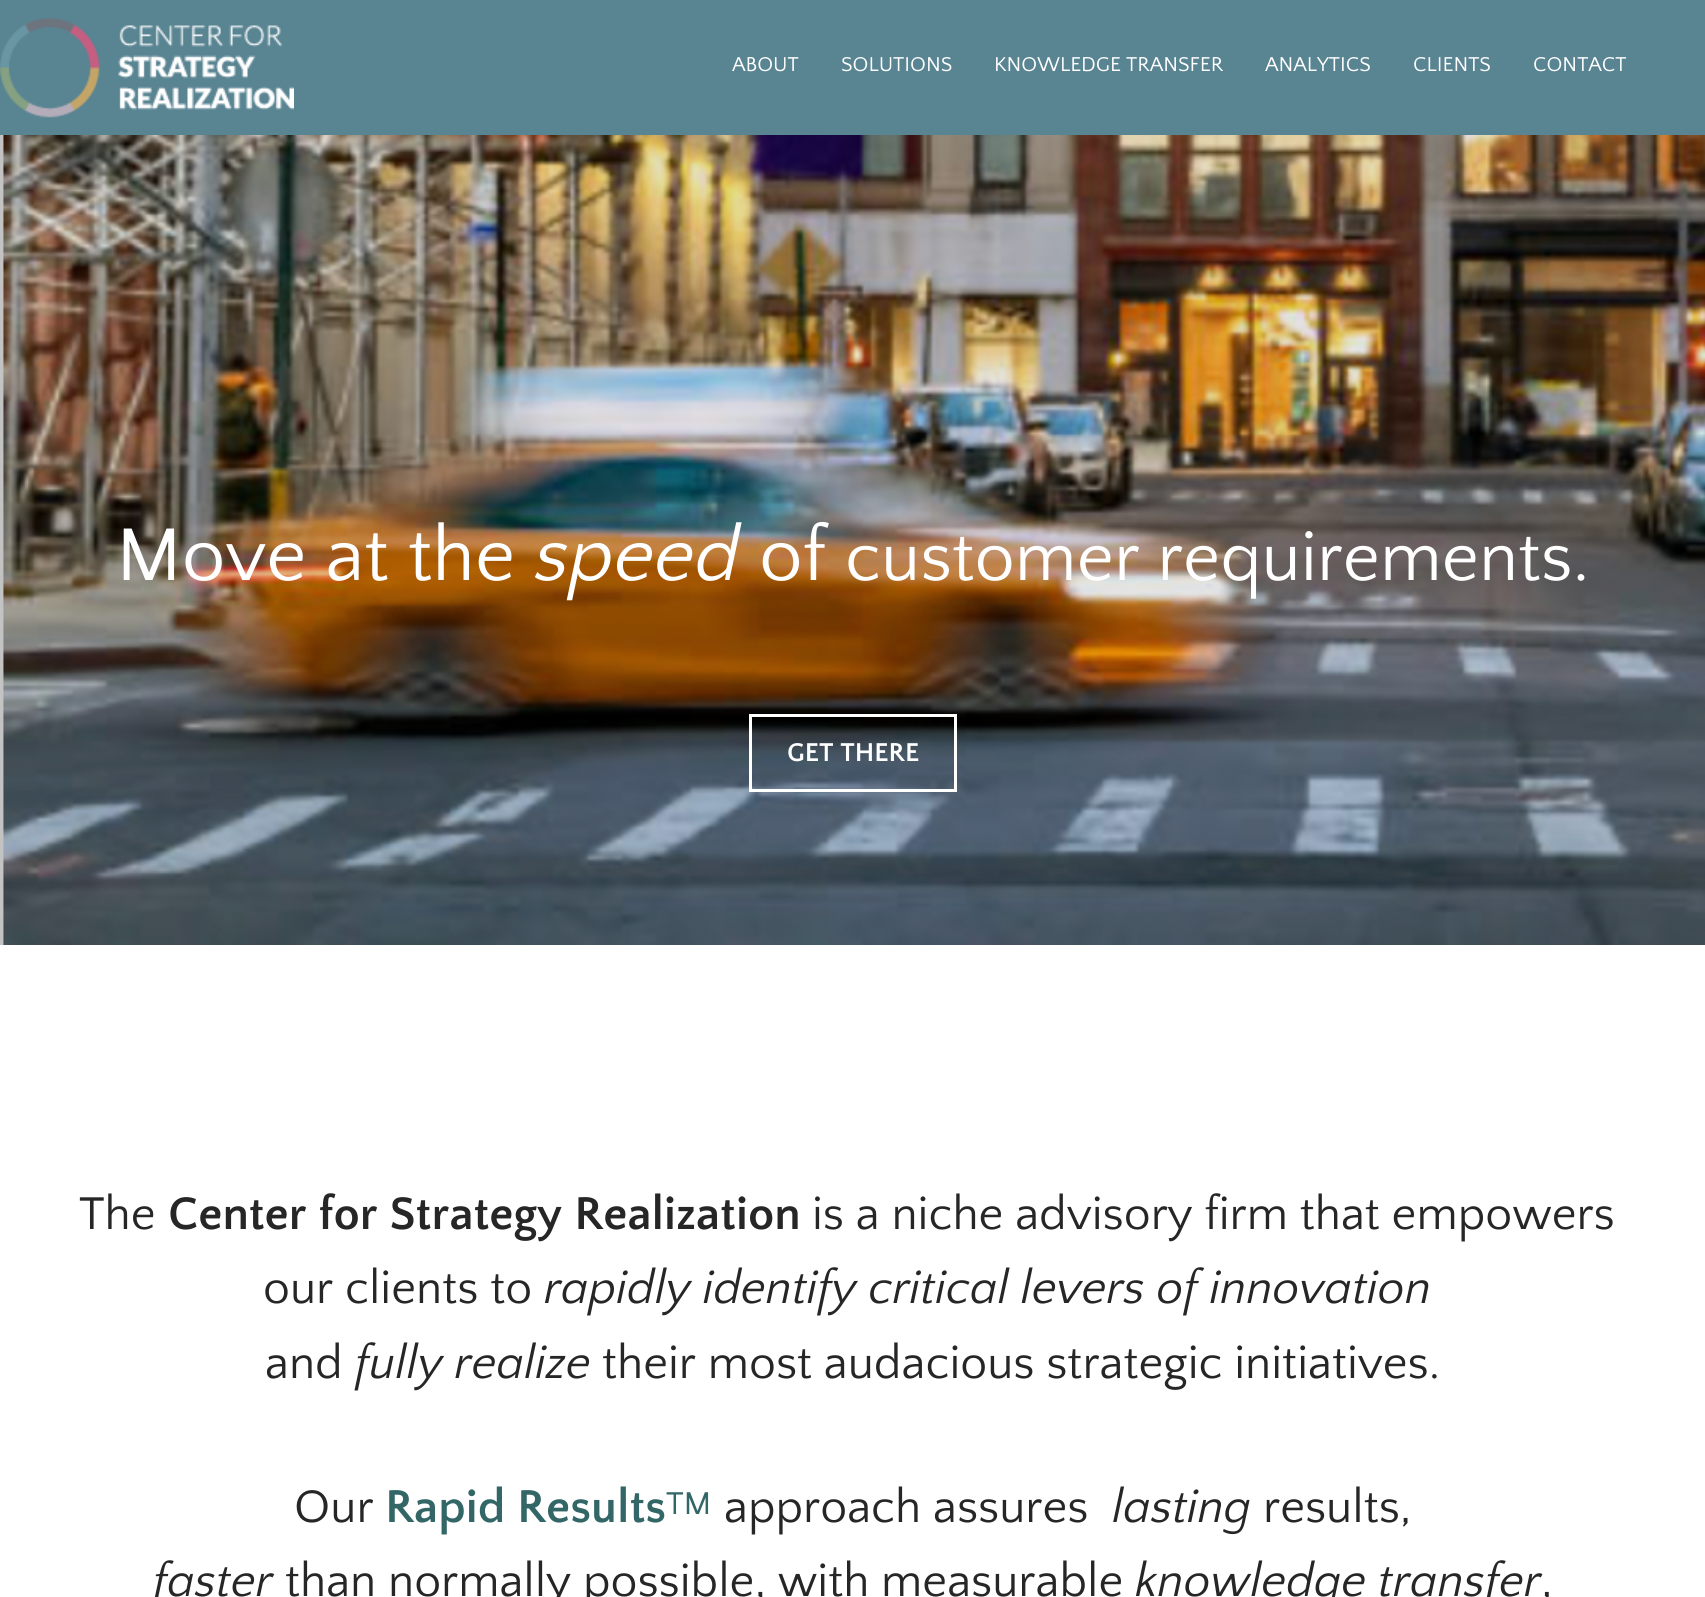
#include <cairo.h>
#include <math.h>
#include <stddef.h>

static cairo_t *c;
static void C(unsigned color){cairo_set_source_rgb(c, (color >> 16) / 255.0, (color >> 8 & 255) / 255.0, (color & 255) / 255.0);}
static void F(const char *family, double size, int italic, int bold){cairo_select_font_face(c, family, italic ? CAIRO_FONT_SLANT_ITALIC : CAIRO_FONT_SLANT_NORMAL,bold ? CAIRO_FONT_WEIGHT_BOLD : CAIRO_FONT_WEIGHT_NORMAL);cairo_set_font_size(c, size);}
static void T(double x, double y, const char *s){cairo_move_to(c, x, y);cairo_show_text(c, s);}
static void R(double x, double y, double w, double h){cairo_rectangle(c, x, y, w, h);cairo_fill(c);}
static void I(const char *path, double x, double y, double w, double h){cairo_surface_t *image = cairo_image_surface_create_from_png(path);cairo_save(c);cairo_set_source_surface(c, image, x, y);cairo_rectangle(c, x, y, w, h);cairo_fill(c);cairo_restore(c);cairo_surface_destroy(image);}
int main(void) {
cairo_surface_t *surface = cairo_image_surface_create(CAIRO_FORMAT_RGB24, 1705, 1597);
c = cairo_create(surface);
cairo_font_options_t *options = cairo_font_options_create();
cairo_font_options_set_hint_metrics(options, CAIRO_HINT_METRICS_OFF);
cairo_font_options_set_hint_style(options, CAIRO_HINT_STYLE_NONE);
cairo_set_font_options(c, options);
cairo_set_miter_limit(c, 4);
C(0xffffff);
cairo_paint(c);
C(0x598492);
R(0,0,1705,135);
I("1.png",0,18,294,100);
F("Quattrocento Sans",21,0,0);
C(0xffffff);
T(732,71,"ABOUT");
T(841,71,"SOLUTIONS");
T(994,71,"KNOWLEDGE TRANSFER");
T(1265,71,"ANALYTICS");
T(1413,71,"CLIENTS");
T(1533,71,"CONTACT");
I("2.png",0,135,1705,810);
F("Quattrocento Sans",78,0,0);
T(116,580,"Move at the");
F("Quattrocento Sans",78,1,0);
T(535,580,"speed");
F("Quattrocento Sans",78,0,0);
T(759,580,"of");
F("Quattrocento Sans",72,0,0);
T(845,580,"customer requirements.");
cairo_rectangle(c,750.5,715.5,205,75);
cairo_set_line_width(c,3);
cairo_stroke(c);
F("Quattrocento Sans",27,0,1);
T(787,761,"GET THERE");
F("Quattrocento Sans",48,0,0);
C(0x262626);
T(79,1229,"The");
F("Quattrocento Sans",48,0,1);
T(168,1229,"Center for Strategy Realization");
F("Quattrocento Sans",48,0,0);
T(812,1229,"is a niche advisory firm that empowers");
T(263,1303,"our clients to");
F("Quattrocento Sans",48,1,0);
T(544,1303,"rapidly identify critical levers of innovation");
F("Quattrocento Sans",48,0,0);
T(265,1378,"and");
F("Quattrocento Sans",48,1,0);
T(355,1378,"fully realize");
F("Quattrocento Sans",48,0,0);
T(602,1378,"their most audacious strategic initiatives.");
T(294,1522,"Our");
F("Quattrocento Sans",48,0,1);
C(0x336666);
T(385,1522,"Rapid Results");
F("Quattrocento Sans",33,0,0);
T(666,1514,"TM");
F("Quattrocento Sans",48,0,0);
C(0x262626);
T(724,1522,"approach assures");
F("Quattrocento Sans",48,1,0);
T(1112,1522,"lasting");
F("Quattrocento Sans",48,0,0);
T(1263,1522,"results,");
F("Quattrocento Sans",48,1,0);
T(153,1596,"faster");
F("Quattrocento Sans",48,0,0);
T(285,1596,"than normally possible, with measurable");
F("Quattrocento Sans",48,1,0);
T(1135,1596,"knowledge transfer");
F("Quattrocento Sans",48,0,0);
T(1541,1596,",");
cairo_surface_write_to_png(surface, "o.png");
cairo_font_options_destroy(options);
cairo_destroy(c);
cairo_surface_destroy(surface);
return 0;
}
